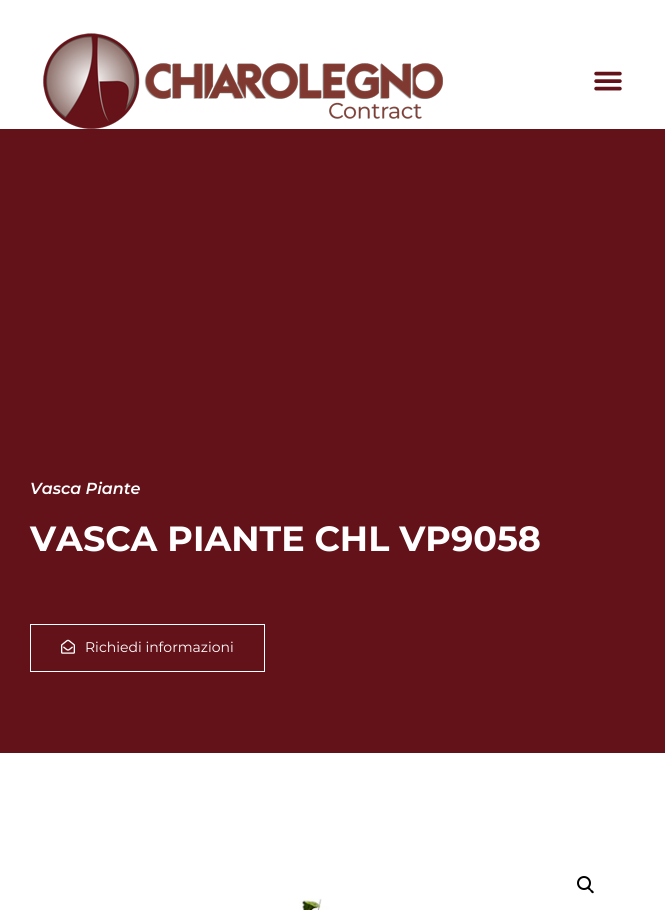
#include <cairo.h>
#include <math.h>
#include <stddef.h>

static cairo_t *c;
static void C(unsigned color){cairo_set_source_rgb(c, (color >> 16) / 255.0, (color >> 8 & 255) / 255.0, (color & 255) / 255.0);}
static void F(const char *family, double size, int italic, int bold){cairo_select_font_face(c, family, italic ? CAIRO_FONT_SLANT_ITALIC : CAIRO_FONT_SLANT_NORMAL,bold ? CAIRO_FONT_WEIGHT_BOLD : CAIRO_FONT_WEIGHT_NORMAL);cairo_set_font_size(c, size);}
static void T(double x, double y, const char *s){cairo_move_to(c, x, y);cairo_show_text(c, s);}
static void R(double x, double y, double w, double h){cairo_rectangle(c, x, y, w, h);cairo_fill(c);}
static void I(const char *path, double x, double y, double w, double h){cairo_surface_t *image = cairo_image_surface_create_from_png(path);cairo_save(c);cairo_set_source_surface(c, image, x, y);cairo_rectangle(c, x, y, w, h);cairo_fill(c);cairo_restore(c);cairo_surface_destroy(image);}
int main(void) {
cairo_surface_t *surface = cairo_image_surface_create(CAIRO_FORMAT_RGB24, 665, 910);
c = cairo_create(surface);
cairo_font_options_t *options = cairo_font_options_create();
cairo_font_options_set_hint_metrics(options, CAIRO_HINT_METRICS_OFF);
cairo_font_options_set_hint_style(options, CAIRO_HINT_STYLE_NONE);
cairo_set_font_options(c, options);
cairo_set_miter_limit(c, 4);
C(0xffffff);
cairo_paint(c);
I("1.png",43,33,400,96);
I("2.png",594,71,28,20);
C(0x641219);
R(0,129,665,624);
F("Montserrat SemiBold",16,1,0);
C(0xffffff);
T(30,494,"Vasca Piante");
F("Montserrat",35,0,1);
T(30,551,"VASCA PIANTE CHL VP9058");
cairo_rectangle(c,30.5,624.5,234,47);
cairo_set_line_width(c,1);
cairo_stroke(c);
I("3.png",61,639,14,15);
F("Montserrat",14,0,0);
T(85,652,"Richiedi informazioni");
cairo_new_path(c);
cairo_arc(c,584,883,6,0,2 * M_PI);
C(0x000000);
cairo_set_line_width(c,2);
cairo_stroke(c);
cairo_new_path(c);
cairo_move_to(c,587.5,887);
cairo_curve_to(c,589,886,590.5,888.5,591,889.5);
cairo_curve_to(c,592,890,594.5,891.5,593.5,893);
cairo_curve_to(c,592,894,590.5,891.5,590,890.5);
cairo_curve_to(c,589,890,586.5,888.5,587.5,887);
cairo_close_path(c);
cairo_fill(c);
I("4.png",299,898,30,12);
cairo_surface_write_to_png(surface, "o.png");
cairo_font_options_destroy(options);
cairo_destroy(c);
cairo_surface_destroy(surface);
return 0;
}
